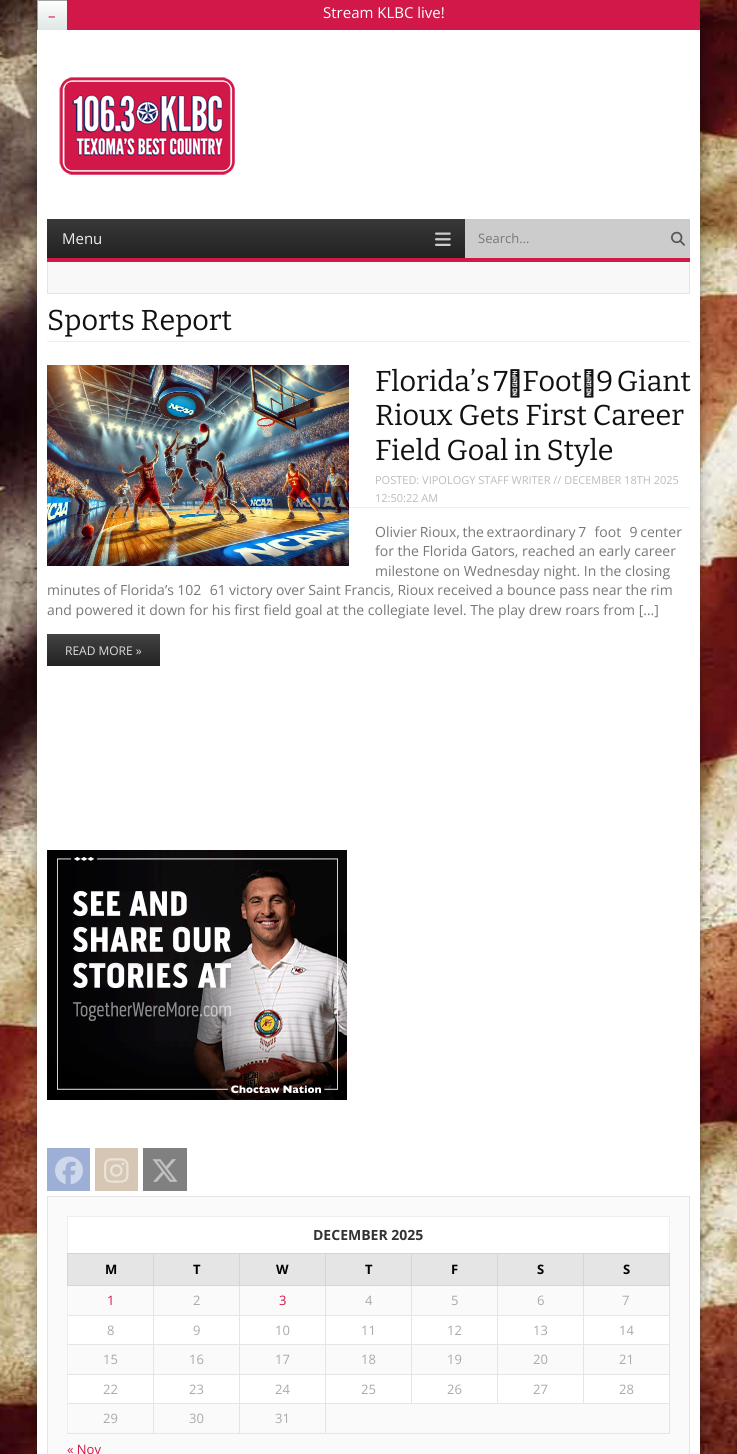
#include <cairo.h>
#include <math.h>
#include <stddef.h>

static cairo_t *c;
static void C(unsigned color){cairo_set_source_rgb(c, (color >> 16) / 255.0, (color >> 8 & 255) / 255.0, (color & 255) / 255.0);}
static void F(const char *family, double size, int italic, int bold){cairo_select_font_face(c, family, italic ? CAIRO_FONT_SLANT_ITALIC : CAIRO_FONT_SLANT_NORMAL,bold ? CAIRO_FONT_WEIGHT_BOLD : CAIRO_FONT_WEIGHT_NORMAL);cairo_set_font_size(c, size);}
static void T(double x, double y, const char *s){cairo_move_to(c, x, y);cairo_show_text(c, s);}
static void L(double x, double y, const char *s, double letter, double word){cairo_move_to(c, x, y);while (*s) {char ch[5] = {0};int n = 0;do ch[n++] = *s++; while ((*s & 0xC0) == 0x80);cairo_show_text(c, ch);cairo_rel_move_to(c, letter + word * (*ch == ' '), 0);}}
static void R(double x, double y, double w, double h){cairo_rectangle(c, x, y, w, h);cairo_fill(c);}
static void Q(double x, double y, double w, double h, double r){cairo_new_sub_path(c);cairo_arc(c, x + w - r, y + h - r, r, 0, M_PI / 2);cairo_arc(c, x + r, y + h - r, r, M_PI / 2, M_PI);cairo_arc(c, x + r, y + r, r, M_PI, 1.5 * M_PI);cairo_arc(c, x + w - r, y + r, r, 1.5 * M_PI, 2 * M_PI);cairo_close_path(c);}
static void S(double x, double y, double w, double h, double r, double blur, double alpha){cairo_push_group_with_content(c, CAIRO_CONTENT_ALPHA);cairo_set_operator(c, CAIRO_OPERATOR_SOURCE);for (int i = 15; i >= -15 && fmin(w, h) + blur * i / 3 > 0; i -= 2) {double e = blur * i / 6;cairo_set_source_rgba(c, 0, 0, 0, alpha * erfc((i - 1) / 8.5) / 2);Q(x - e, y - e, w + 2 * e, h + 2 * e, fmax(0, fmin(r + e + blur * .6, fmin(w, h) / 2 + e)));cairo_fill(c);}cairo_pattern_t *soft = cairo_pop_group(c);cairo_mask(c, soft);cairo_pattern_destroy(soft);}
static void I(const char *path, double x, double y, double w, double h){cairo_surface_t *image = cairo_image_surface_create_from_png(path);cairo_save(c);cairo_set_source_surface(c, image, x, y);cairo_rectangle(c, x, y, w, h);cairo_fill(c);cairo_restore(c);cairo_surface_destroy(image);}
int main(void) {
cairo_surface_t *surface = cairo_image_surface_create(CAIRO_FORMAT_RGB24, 737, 1454);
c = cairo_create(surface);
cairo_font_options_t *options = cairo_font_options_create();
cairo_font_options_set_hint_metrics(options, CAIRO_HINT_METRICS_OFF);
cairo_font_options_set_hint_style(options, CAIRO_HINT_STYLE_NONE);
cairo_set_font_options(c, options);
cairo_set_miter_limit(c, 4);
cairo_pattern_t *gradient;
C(0xffffff);
cairo_paint(c);
I("1.png",0,0,737,1454);
C(0x000000);
S(37,0,663,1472,0,6,.4);
C(0xffffff);
R(37,30,663,1424);
gradient = cairo_pattern_create_linear(52,0,52,30);
cairo_pattern_add_color_stop_rgba(gradient,0,1,1,1,1);
cairo_pattern_add_color_stop_rgba(gradient,1,0.871,0.91,0.894,1);
cairo_set_source(c,gradient);
cairo_pattern_destroy(gradient);
R(37,0,30,30);
cairo_save(c);
cairo_rectangle(c,37,0,30,30);
cairo_clip(c);
cairo_set_source_rgba(c,0,0,0,0.35);
cairo_set_fill_rule(c,CAIRO_FILL_RULE_EVEN_ODD);
cairo_new_path(c);
cairo_move_to(c,-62,-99);
cairo_line_to(c,166,-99);
cairo_line_to(c,166,129);
cairo_line_to(c,-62,129);
cairo_close_path(c);
cairo_move_to(c,38,1);
cairo_line_to(c,68,1);
cairo_line_to(c,68,31);
cairo_line_to(c,38,31);
cairo_close_path(c);
cairo_fill(c);
cairo_restore(c);
F("Open Sans",15,0,0);
C(0xd21848);
T(48,21,"–");
R(67,0,633,30);
C(0xffffff);
T(323,18,"Stream KLBC live!");
I("2.png",59,77,176,98);
C(0xd21848);
R(47,258,643,4);
gradient = cairo_pattern_create_linear(256,219,256,258);
cairo_pattern_add_color_stop_rgba(gradient,0,0.22,0.22,0.22,1);
cairo_pattern_add_color_stop_rgba(gradient,1,0.133,0.133,0.133,1);
cairo_set_source(c,gradient);
cairo_pattern_destroy(gradient);
R(47,219,418,39);
C(0xeeeeee);
T(62,244,"Menu");
I("3.png",435,232,16,14);
C(0xcccccc);
R(465,219,225,39);
F("Open Sans",13,0,0);
C(0x777777);
T(478,243,"Search…");
I("4.png",671,231,14,15);
C(0xf8f8f8);
R(48,262,641,31);
C(0xe4e4e4);
R(689,262,1,32);
R(47,293,643,1);
R(47,262,1,32);
C(0xeeeeee);
R(47,341,643,1);
F("Bitter Thin",28.75,0,0);
C(0x111111);
T(47,330,"Sports Report");
I("5.png",47,365,302,201);
C(0xeeeeee);
R(349,507,341,1);
C(0x111111);
L(375,391,"Florida’s 7‑Foot‑9 Giant",0,-2);
T(375,425,"Rioux Gets First Career");
T(375,460,"Field Goal in Style");
F("Open Sans",11,0,0);
C(0xbbbbbb);
T(375,484,"POSTED: VIPOLOGY STAFF WRITER // DECEMBER 18TH 2025");
T(375,502,"12:50:22 AM");
F("Open Sans",14,0,0);
C(0x777777);
L(375,537,"Olivier Rioux, the extraordinary 7‑foot‑9 center",0,-1);
T(375,556,"for the Florida Gators, reached an early career");
T(375,576,"milestone on Wednesday night. In the closing");
L(47,595,"minutes of Florida’s 102‑61 victory over Saint Francis, Rioux received a bounce pass near the rim",0,-.25);
T(47,615,"and powered it down for his first field goal at the collegiate level. The play drew roars from […]");
gradient = cairo_pattern_create_linear(104,634,104,666);
cairo_pattern_add_color_stop_rgba(gradient,0,0.263,0.263,0.263,1);
cairo_pattern_add_color_stop_rgba(gradient,1,0.133,0.133,0.133,1);
cairo_set_source(c,gradient);
cairo_pattern_destroy(gradient);
R(47,634,113,32);
F("Open Sans",12,0,0);
C(0xdddddd);
T(65,655,"READ MORE »");
I("6.png",47,850,300,250);
C(0x9eafd6);
R(47,1148,43,43);
I("7.png",55,1156,28,29);
C(0xd5c7b4);
R(95,1148,43,43);
I("8.png",104,1158,25,25);
C(0x808080);
R(143,1148,44,43);
I("9.png",152,1159,26,23);
C(0xfafafa);
cairo_rectangle(c,47.5,1196.5,642,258);
cairo_fill_preserve(c);
C(0xe4e4e4);
cairo_set_line_width(c,1);
cairo_stroke(c);
C(0xffffff);
R(68,1217,601,186);
C(0xeeeeee);
R(67,1216,603,1);
R(669,1216,1,37);
R(67,1216,1,218);
F("Open Sans",14,0,1);
C(0x333333);
T(313,1240,"DECEMBER 2025");
C(0xe5e5e5);
R(68,1254,85,31);
C(0xd5d5d5);
R(583,1253,87,1);
C(0xe5e5e5);
R(669,1285,1,149);
C(0xd5d5d5);
R(669,1253,1,33);
C(0xe5e5e5);
R(583,1403,87,1);
R(583,1374,1,30);
R(583,1374,87,1);
R(583,1344,1,31);
R(583,1344,87,1);
R(583,1315,1,30);
R(583,1315,87,1);
R(583,1285,1,31);
C(0xd5d5d5);
R(583,1285,87,1);
R(583,1253,1,33);
R(497,1253,87,1);
C(0xe5e5e5);
R(497,1403,87,1);
R(497,1374,1,30);
R(497,1374,87,1);
R(497,1344,1,31);
R(497,1344,87,1);
R(497,1315,1,30);
R(497,1315,87,1);
R(497,1285,1,31);
C(0xd5d5d5);
R(497,1285,87,1);
R(497,1253,1,33);
R(411,1253,87,1);
C(0xe5e5e5);
R(411,1403,87,1);
R(411,1374,1,30);
R(411,1374,87,1);
R(411,1344,1,31);
R(411,1344,87,1);
R(411,1315,1,30);
R(411,1315,87,1);
R(411,1285,1,31);
C(0xd5d5d5);
R(411,1285,87,1);
R(411,1253,1,33);
R(325,1253,87,1);
C(0xe5e5e5);
R(325,1433,345,1);
R(325,1403,1,31);
R(325,1403,87,1);
R(325,1374,1,30);
R(325,1374,87,1);
R(325,1344,1,31);
R(325,1344,87,1);
R(325,1315,1,30);
R(325,1315,87,1);
R(325,1285,1,31);
C(0xd5d5d5);
R(325,1285,87,1);
R(325,1253,1,33);
R(239,1253,87,1);
C(0xe5e5e5);
R(239,1433,87,1);
R(239,1403,1,31);
R(239,1403,87,1);
R(239,1374,1,30);
R(239,1374,87,1);
R(239,1344,1,31);
R(239,1344,87,1);
R(239,1315,1,30);
R(239,1315,87,1);
R(239,1285,1,31);
C(0xd5d5d5);
R(239,1285,87,1);
R(239,1253,1,33);
R(153,1253,87,1);
C(0xe5e5e5);
R(153,1433,87,1);
R(153,1403,1,31);
R(153,1403,87,1);
R(153,1374,1,30);
R(153,1374,87,1);
R(153,1344,1,31);
R(153,1344,87,1);
R(153,1315,1,30);
R(153,1315,87,1);
R(153,1285,1,31);
C(0xd5d5d5);
R(153,1285,87,1);
R(153,1253,1,33);
R(67,1253,87,1);
R(67,1285,87,1);
R(67,1253,1,33);
F("Open Sans",13,0,1);
C(0x000000);
T(105,1274,"M");
C(0xe5e5e5);
R(154,1254,85,31);
C(0x000000);
T(193,1274,"T");
C(0xe5e5e5);
R(240,1254,85,31);
C(0x000000);
T(276,1274,"W");
C(0xe5e5e5);
R(326,1254,85,31);
C(0x000000);
T(365,1274,"T");
C(0xe5e5e5);
R(412,1254,85,31);
C(0x000000);
T(451,1274,"F");
C(0xe5e5e5);
R(498,1254,85,31);
C(0x000000);
T(537,1274,"S");
C(0xe5e5e5);
R(584,1254,85,31);
C(0x000000);
T(623,1274,"S");
C(0xfafafa);
R(68,1286,85,29);
C(0xe5e5e5);
R(67,1315,87,1);
F("Open Sans",13,0,0);
C(0xd21848);
T(107,1305,"1");
C(0xfafafa);
R(154,1286,85,29);
C(0xaaaaaa);
T(193,1305,"2");
C(0xfafafa);
R(240,1286,85,29);
C(0xd21848);
T(279,1305,"3");
C(0xfafafa);
R(326,1286,85,29);
C(0xaaaaaa);
T(365,1305,"4");
C(0xfafafa);
R(412,1286,85,29);
C(0xaaaaaa);
T(451,1305,"5");
C(0xfafafa);
R(498,1286,85,29);
C(0xaaaaaa);
T(537,1305,"6");
C(0xfafafa);
R(584,1286,85,29);
C(0xaaaaaa);
T(622,1305,"7");
C(0xe5e5e5);
R(67,1344,87,1);
C(0xaaaaaa);
T(107,1335,"8");
T(193,1335,"9");
T(275,1335,"10");
T(361,1335,"11");
T(447,1335,"12");
T(533,1335,"13");
T(619,1335,"14");
C(0xfafafa);
R(68,1345,85,29);
C(0xe5e5e5);
R(67,1374,87,1);
C(0xaaaaaa);
T(103,1364,"15");
C(0xfafafa);
R(154,1345,85,29);
C(0xaaaaaa);
T(189,1364,"16");
C(0xfafafa);
R(240,1345,85,29);
C(0xaaaaaa);
T(275,1364,"17");
C(0xfafafa);
R(326,1345,85,29);
C(0xaaaaaa);
T(361,1364,"18");
C(0xfafafa);
R(412,1345,85,29);
C(0xaaaaaa);
T(447,1364,"19");
C(0xfafafa);
R(498,1345,85,29);
C(0xaaaaaa);
T(533,1364,"20");
C(0xfafafa);
R(584,1345,85,29);
C(0xaaaaaa);
T(619,1364,"21");
C(0xe5e5e5);
R(67,1403,87,1);
C(0xaaaaaa);
T(103,1394,"22");
T(189,1394,"23");
T(275,1394,"24");
T(361,1394,"25");
T(447,1394,"26");
T(533,1394,"27");
T(619,1394,"28");
C(0xe5e5e5);
R(67,1433,87,1);
C(0xaaaaaa);
T(103,1423,"29");
T(189,1423,"30");
T(275,1423,"31");
C(0xd21848);
T(67,1454,"« Nov");
cairo_surface_write_to_png(surface, "o.png");
cairo_font_options_destroy(options);
cairo_destroy(c);
cairo_surface_destroy(surface);
return 0;
}
